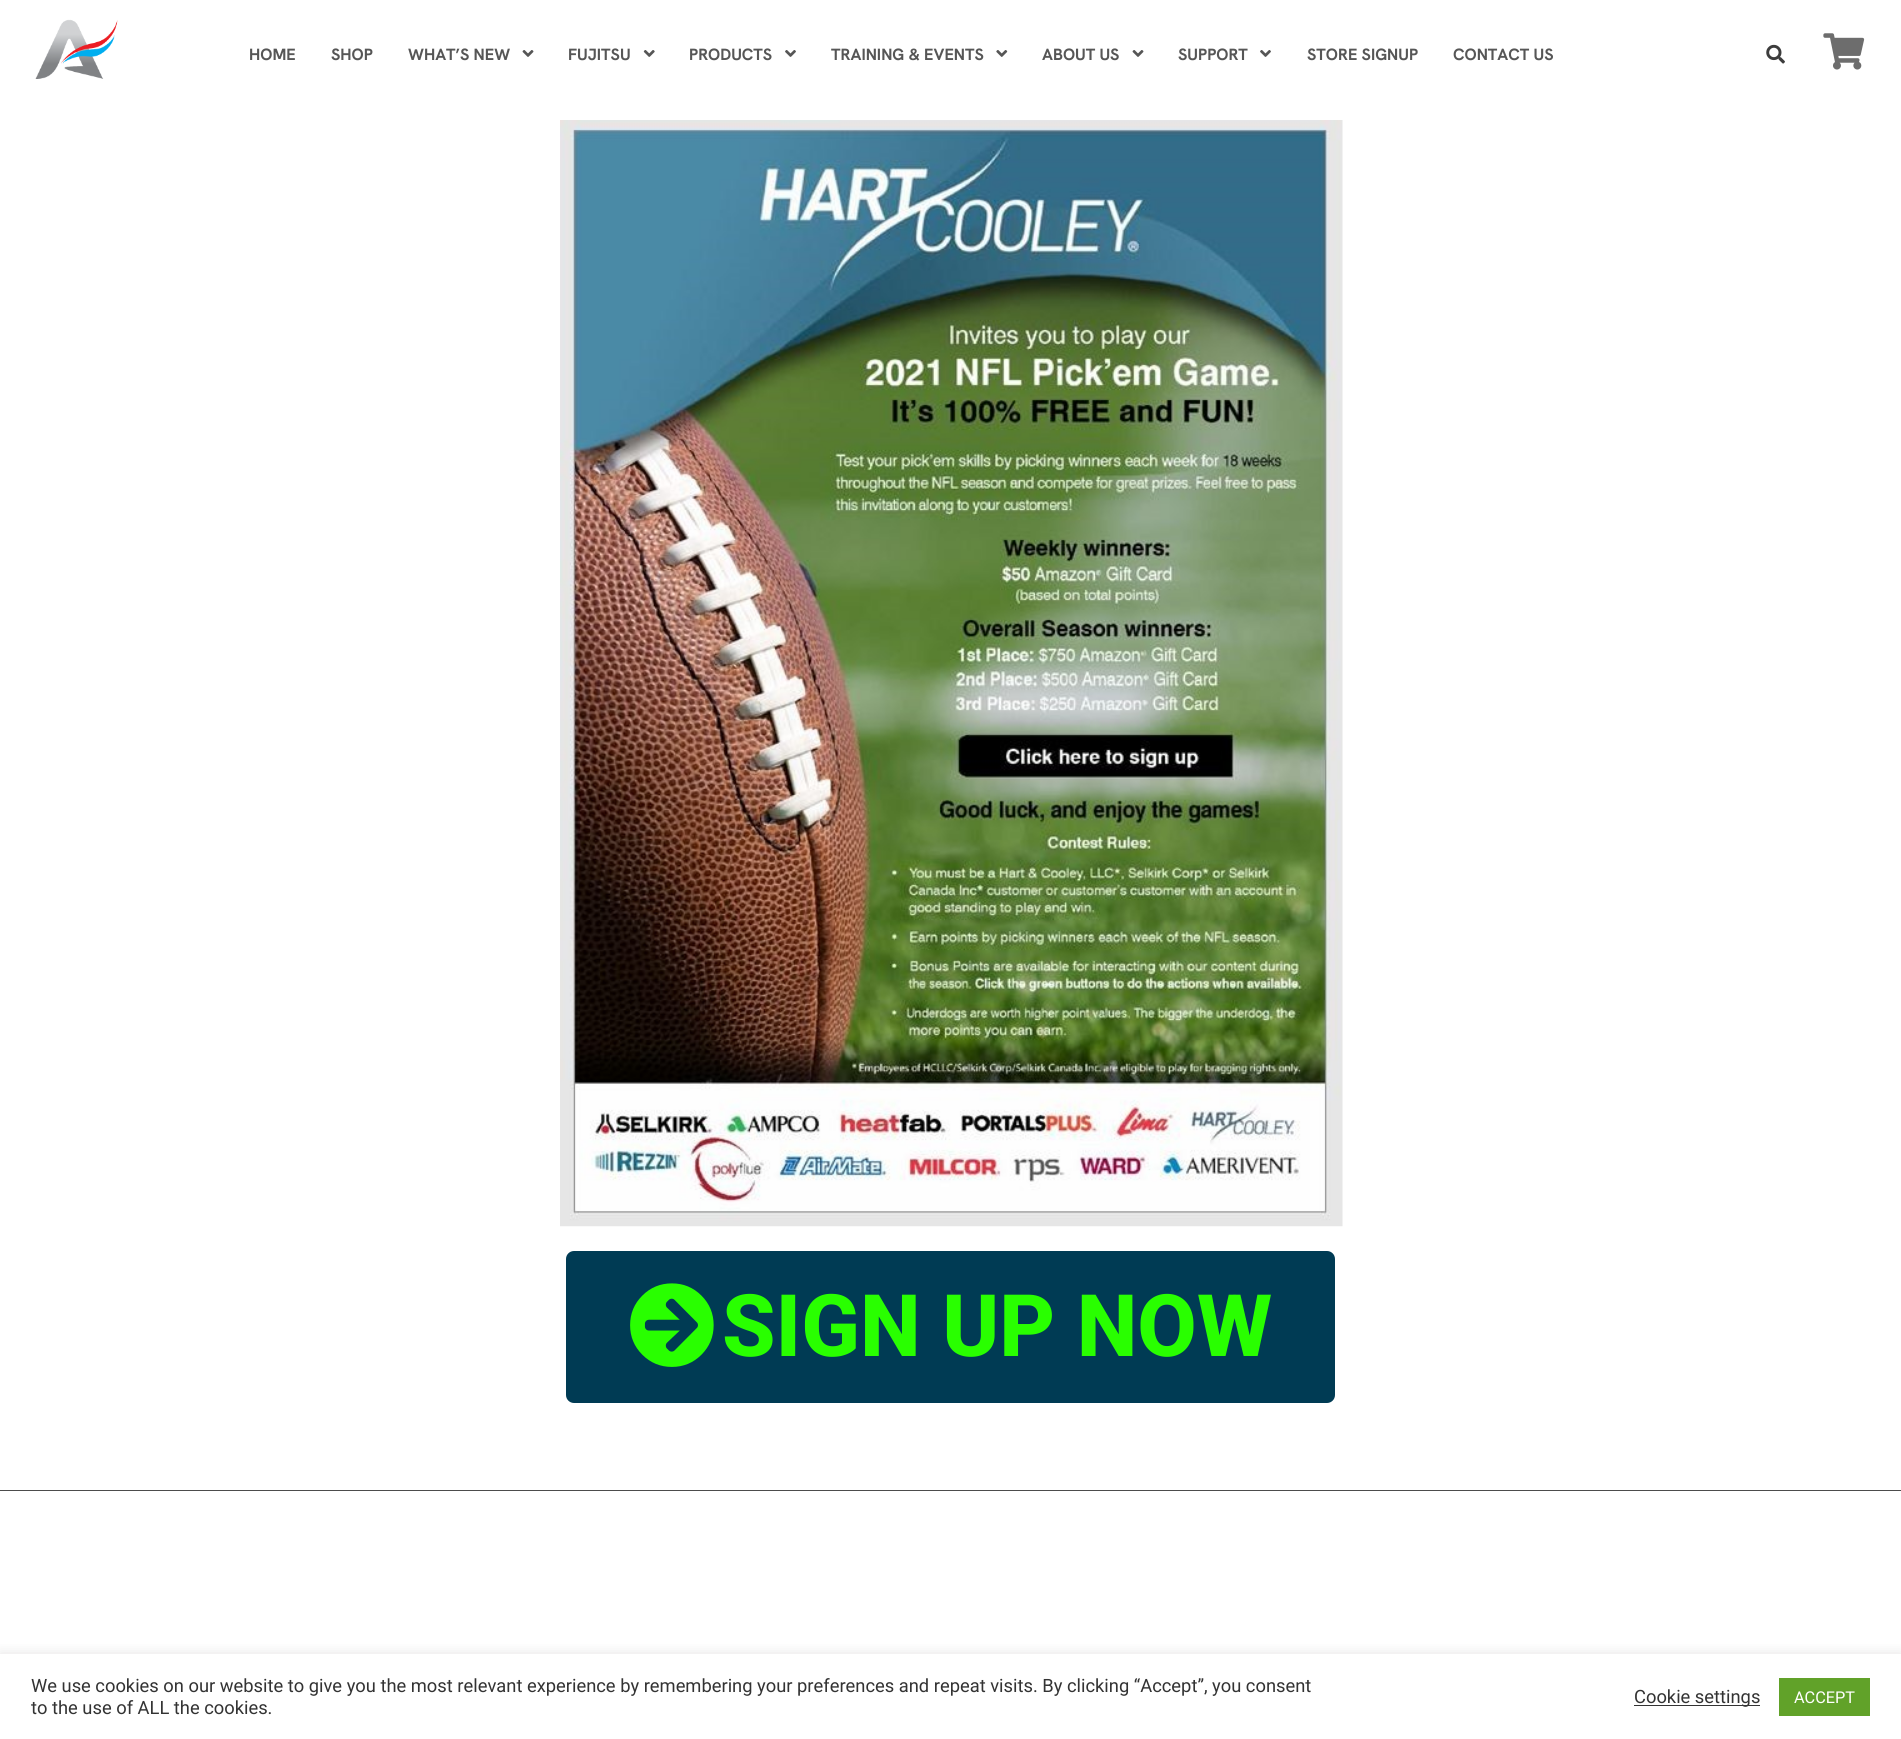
#include <cairo.h>
#include <math.h>
#include <stddef.h>

static cairo_t *c;
static void C(unsigned color){cairo_set_source_rgb(c, (color >> 16) / 255.0, (color >> 8 & 255) / 255.0, (color & 255) / 255.0);}
static void F(const char *family, double size, int italic, int bold){cairo_select_font_face(c, family, italic ? CAIRO_FONT_SLANT_ITALIC : CAIRO_FONT_SLANT_NORMAL,bold ? CAIRO_FONT_WEIGHT_BOLD : CAIRO_FONT_WEIGHT_NORMAL);cairo_set_font_size(c, size);}
static void T(double x, double y, const char *s){cairo_move_to(c, x, y);cairo_show_text(c, s);}
static void R(double x, double y, double w, double h){cairo_rectangle(c, x, y, w, h);cairo_fill(c);}
static void Q(double x, double y, double w, double h, double r){cairo_new_sub_path(c);cairo_arc(c, x + w - r, y + h - r, r, 0, M_PI / 2);cairo_arc(c, x + r, y + h - r, r, M_PI / 2, M_PI);cairo_arc(c, x + r, y + r, r, M_PI, 1.5 * M_PI);cairo_arc(c, x + w - r, y + r, r, 1.5 * M_PI, 2 * M_PI);cairo_close_path(c);}
static void S(double x, double y, double w, double h, double r, double blur, double alpha){cairo_push_group_with_content(c, CAIRO_CONTENT_ALPHA);cairo_set_operator(c, CAIRO_OPERATOR_SOURCE);for (int i = 15; i >= -15 && fmin(w, h) + blur * i / 3 > 0; i -= 2) {double e = blur * i / 6;cairo_set_source_rgba(c, 0, 0, 0, alpha * erfc((i - 1) / 8.5) / 2);Q(x - e, y - e, w + 2 * e, h + 2 * e, fmax(0, fmin(r + e + blur * .6, fmin(w, h) / 2 + e)));cairo_fill(c);}cairo_pattern_t *soft = cairo_pop_group(c);cairo_mask(c, soft);cairo_pattern_destroy(soft);}
static void I(const char *path, double x, double y, double w, double h){cairo_surface_t *image = cairo_image_surface_create_from_png(path);cairo_save(c);cairo_set_source_surface(c, image, x, y);cairo_rectangle(c, x, y, w, h);cairo_fill(c);cairo_restore(c);cairo_surface_destroy(image);}
int main(void) {
cairo_surface_t *surface = cairo_image_surface_create(CAIRO_FORMAT_RGB24, 1901, 1739);
c = cairo_create(surface);
cairo_font_options_t *options = cairo_font_options_create();
cairo_font_options_set_hint_metrics(options, CAIRO_HINT_METRICS_OFF);
cairo_font_options_set_hint_style(options, CAIRO_HINT_STYLE_NONE);
cairo_set_font_options(c, options);
cairo_set_miter_limit(c, 4);
C(0xffffff);
cairo_paint(c);
I("1.png",35,19,83,60);
F("Hanken Grotesk",16.25,0,1);
C(0x565656);
T(249,60,"HOME");
T(331,60,"SHOP");
T(408,60,"WHAT’S NEW");
I("2.png",522,50,12,7);
T(568,60,"FUJITSU");
I("3.png",643,50,12,7);
T(689,60,"PRODUCTS");
I("4.png",785,50,11,7);
T(831,60,"TRAINING & EVENTS");
I("5.png",996,50,12,7);
T(1042,60,"ABOUT US");
I("2.png",1132,50,12,7);
T(1178,60,"SUPPORT");
I("4.png",1260,50,11,7);
T(1307,60,"STORE SIGNUP");
T(1453,60,"CONTACT US");
I("6.png",1766,44,19,20);
I("7.png",1823,33,42,37);
I("8.png",560,120,783,1107);
C(0x003b54);
Q(566,1251,769,152,8);
cairo_fill(c);
I("9.png",630,1283,84,84);
F("Roboto ExtraBold",86.25,0,0);
C(0x29ff00);
T(722,1356,"SIGN UP NOW");
C(0x4c4c4c);
R(0,1490,1901,1);
cairo_save(c);
cairo_rectangle(c,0,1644,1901,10);
cairo_clip(c);
C(0xacabab);
S(0,1653,1901,86,0,6,.3);
cairo_restore(c);
F("Roboto",18.33,0,0);
C(0x333333);
T(31,1692,"We use cookies on our website to give you the most relevant experience by remembering your preferences and repeat visits. By clicking “Accept”, you consent");
T(31,1714,"to the use of ALL the cookies.");
R(1634,1705,126,1);
T(1634,1703,"Cookie settings");
C(0x61a229);
R(1779,1678,91,38);
F("Roboto",16.25,0,0);
C(0xffffff);
T(1794,1703,"ACCEPT");
cairo_surface_write_to_png(surface, "o.png");
cairo_font_options_destroy(options);
cairo_destroy(c);
cairo_surface_destroy(surface);
return 0;
}
